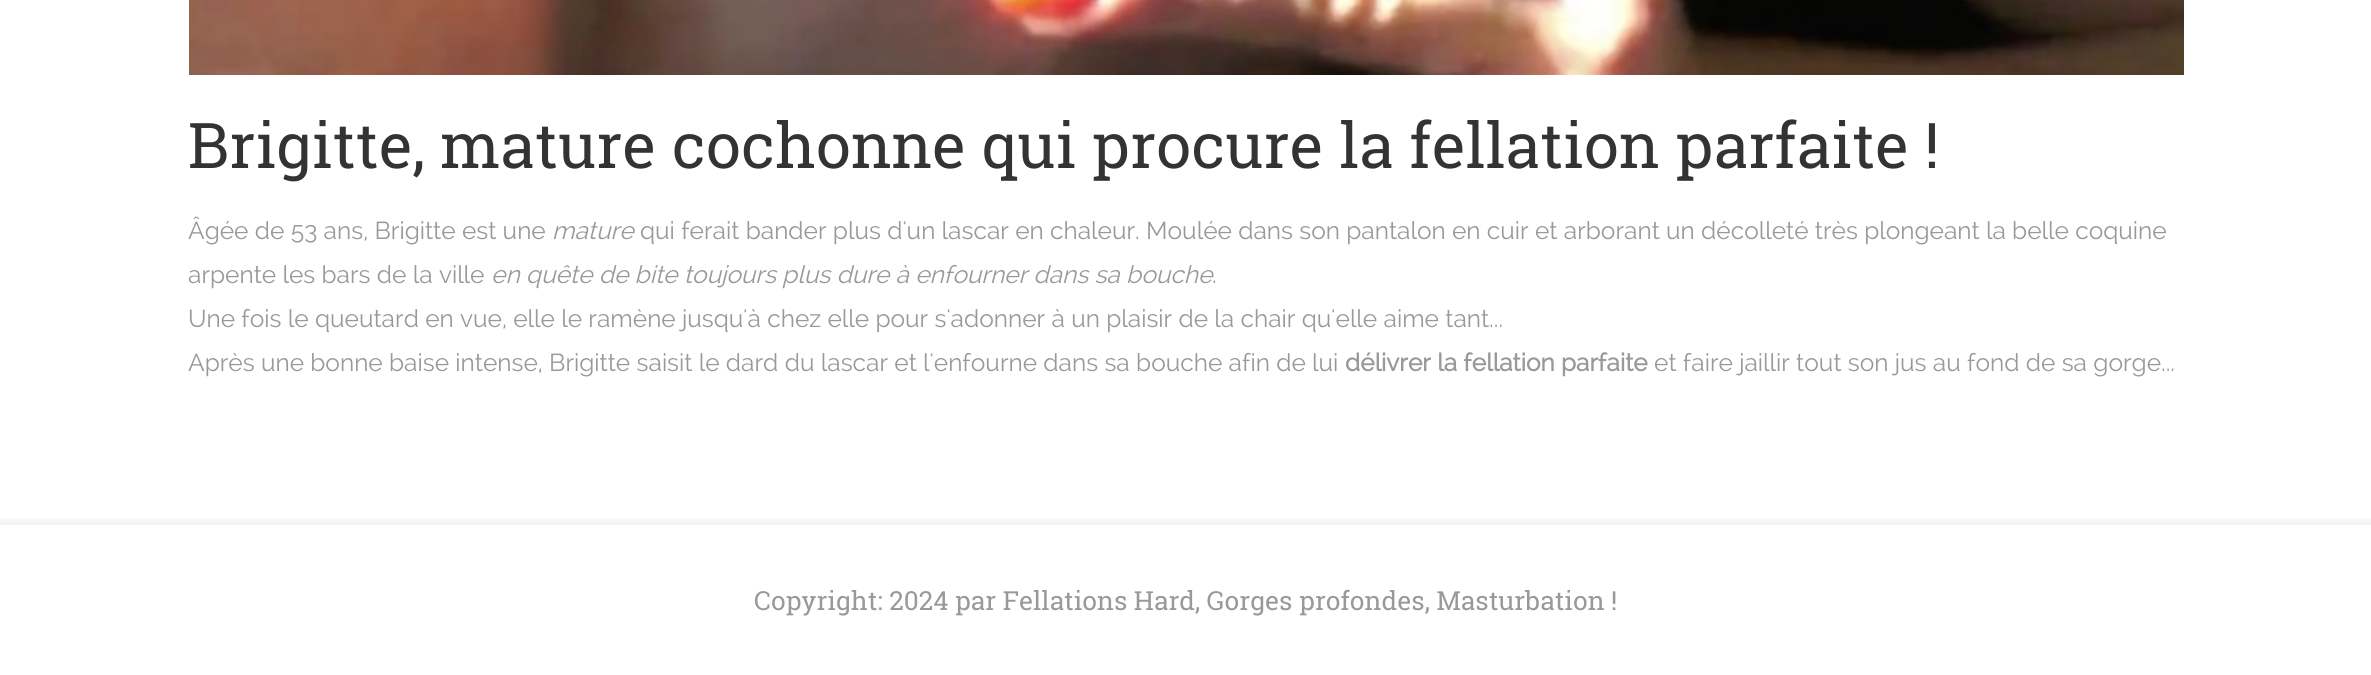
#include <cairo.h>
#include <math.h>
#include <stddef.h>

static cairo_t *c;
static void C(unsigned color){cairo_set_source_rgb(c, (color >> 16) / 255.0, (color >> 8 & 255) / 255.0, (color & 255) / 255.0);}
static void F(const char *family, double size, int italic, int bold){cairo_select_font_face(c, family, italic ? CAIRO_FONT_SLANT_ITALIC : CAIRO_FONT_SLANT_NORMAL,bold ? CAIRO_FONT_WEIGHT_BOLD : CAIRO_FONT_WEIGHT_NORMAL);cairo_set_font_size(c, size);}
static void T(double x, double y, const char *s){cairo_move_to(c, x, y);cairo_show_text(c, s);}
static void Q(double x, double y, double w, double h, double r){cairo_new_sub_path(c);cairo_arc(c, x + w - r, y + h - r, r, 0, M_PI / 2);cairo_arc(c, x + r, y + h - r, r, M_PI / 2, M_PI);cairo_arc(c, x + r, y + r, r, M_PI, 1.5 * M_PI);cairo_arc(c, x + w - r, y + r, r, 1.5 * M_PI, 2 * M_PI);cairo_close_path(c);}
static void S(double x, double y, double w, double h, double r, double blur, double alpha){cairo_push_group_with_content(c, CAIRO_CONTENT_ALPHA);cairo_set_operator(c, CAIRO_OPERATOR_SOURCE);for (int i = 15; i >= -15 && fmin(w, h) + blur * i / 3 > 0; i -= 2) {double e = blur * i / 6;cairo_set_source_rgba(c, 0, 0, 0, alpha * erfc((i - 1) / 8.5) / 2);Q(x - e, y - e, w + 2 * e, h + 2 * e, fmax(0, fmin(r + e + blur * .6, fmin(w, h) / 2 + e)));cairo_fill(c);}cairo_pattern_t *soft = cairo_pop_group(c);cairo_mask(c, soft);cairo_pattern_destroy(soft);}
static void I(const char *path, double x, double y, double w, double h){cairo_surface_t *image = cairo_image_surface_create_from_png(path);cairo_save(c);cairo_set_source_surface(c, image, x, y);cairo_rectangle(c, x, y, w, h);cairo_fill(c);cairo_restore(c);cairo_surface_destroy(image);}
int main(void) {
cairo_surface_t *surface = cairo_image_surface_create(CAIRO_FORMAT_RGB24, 2371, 675);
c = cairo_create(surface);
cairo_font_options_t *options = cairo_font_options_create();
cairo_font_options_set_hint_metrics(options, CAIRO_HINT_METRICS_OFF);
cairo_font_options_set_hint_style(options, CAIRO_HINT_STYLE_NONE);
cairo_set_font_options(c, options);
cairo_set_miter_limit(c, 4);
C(0xffffff);
cairo_paint(c);
I("1.png",189,0,1995,75);
F("Roboto Slab",63,0,0);
C(0x333333);
T(188,168,"Brigitte, mature cochonne qui procure la fellation parfaite !");
F("Raleway",24.5,0,0);
C(0x999999);
T(188,239,"Âgée de 53 ans, Brigitte est une");
F("Raleway",24.5,1,0);
T(552,239,"mature");
F("Raleway",24.5,0,0);
T(640,239,"qui ferait bander plus d'un lascar en chaleur. Moulée dans son pantalon en cuir et arborant un décolleté très plongeant la belle coquine");
T(188,283,"arpente les bars de la ville");
F("Raleway",24.5,1,0);
T(491,283,"en quête de bite toujours plus dure à enfourner dans sa bouche");
F("Raleway",24.5,0,0);
T(1212,283,".");
T(188,327,"Une fois le queutard en vue, elle le ramène jusqu'à chez elle pour s'adonner à un plaisir de la chair qu'elle aime tant...");
T(188,371,"Après une bonne baise intense, Brigitte saisit le dard du lascar et l'enfourne dans sa bouche afin de lui");
F("Raleway",24.5,0,1);
T(1345,371,"délivrer la fellation parfaite");
F("Raleway",24.5,0,0);
T(1654,371,"et faire jaillir tout son jus au fond de sa gorge...");
cairo_save(c);
cairo_rectangle(c,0,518,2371,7);
cairo_clip(c);
C(0x000000);
S(-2,525,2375,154,0,8,.11);
cairo_restore(c);
F("Roboto Slab",26.25,0,0);
T(754,610,"Copyright: 2024 par Fellations Hard, Gorges profondes, Masturbation !");
cairo_surface_write_to_png(surface, "o.png");
cairo_font_options_destroy(options);
cairo_destroy(c);
cairo_surface_destroy(surface);
return 0;
}
